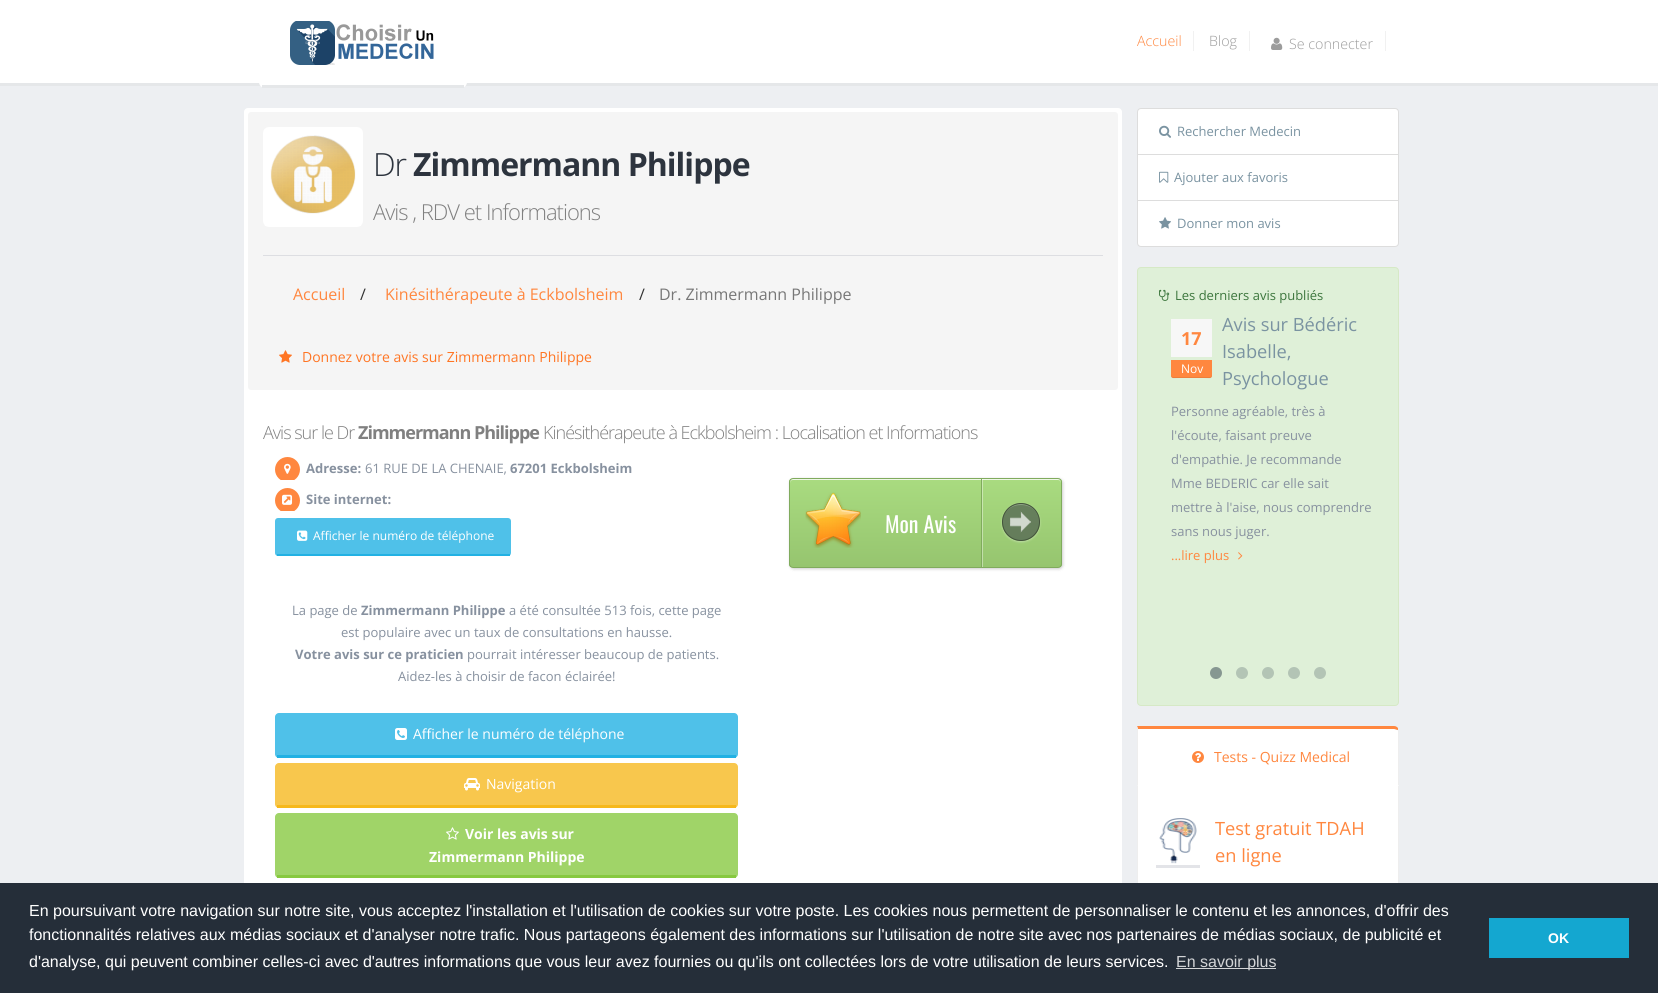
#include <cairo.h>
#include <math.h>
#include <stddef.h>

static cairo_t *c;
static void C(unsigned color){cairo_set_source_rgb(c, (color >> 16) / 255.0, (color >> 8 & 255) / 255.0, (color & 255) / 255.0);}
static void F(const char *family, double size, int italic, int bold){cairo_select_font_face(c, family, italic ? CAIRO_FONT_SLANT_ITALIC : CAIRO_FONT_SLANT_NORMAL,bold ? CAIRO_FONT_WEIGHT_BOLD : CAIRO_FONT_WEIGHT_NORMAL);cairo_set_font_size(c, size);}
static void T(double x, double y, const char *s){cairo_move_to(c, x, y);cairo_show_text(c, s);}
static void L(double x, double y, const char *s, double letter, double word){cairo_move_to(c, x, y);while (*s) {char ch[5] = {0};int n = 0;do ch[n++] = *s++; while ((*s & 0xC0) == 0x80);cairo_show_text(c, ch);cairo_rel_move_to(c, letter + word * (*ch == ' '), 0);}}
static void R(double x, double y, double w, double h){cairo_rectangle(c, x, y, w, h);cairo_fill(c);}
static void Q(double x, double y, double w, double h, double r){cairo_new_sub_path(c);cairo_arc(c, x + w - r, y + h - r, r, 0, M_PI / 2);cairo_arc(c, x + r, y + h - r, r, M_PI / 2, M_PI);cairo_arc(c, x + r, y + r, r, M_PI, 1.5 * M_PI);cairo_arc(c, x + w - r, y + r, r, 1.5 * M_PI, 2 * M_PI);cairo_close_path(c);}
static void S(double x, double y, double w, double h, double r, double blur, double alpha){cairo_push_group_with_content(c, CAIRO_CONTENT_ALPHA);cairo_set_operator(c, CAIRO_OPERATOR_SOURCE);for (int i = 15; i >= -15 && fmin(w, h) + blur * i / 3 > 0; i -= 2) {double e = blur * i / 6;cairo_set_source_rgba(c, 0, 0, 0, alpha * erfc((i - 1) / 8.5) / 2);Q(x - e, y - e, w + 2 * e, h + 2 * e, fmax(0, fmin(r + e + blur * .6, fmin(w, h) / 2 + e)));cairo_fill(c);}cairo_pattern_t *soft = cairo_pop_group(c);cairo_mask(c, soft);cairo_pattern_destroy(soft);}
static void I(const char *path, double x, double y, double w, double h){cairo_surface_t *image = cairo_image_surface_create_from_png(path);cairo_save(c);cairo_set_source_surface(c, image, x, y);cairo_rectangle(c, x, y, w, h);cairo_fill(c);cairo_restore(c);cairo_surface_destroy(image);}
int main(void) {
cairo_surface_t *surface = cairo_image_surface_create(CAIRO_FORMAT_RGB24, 1658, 993);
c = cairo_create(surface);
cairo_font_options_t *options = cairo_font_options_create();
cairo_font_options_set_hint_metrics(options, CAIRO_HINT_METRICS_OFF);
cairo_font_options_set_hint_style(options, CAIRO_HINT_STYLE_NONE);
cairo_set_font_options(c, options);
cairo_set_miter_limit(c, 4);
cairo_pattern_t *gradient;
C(0xedeff2);
cairo_paint(c);
C(0xffffff);
R(0,0,1658,83);
C(0xe5e7e9);
R(0,83,1658,3);
C(0xffffff);
Q(259,11,208,77,6);
cairo_fill(c);
C(0xe5e7e9);
R(262,85,202,3);
I("1.png",290,21,144,44);
F("Open Sans Light",14.25,0,0);
C(0xff873f);
T(1137,46,"Accueil");
C(0xf1f1f1);
R(1193,31,1,20);
C(0x9c9c9c);
T(1209,46,"Blog");
C(0xf1f1f1);
R(1249,31,1,20);
I("2.png",1271,37,12,13);
C(0x9c9c9c);
T(1289,49,"Se connecter");
C(0xf1f1f1);
R(1385,31,1,20);
C(0xffffff);
Q(244,108,878,786,4);
cairo_fill(c);
C(0xf5f5f5);
Q(248,112,870,278,3);
cairo_fill(c);
I("3.png",263,127,100,100);
F("Open Sans Light",32,0,0);
C(0x2d343e);
L(373,176,"Dr",-1,0);
F("Open Sans",32,0,1);
L(413,176,"Zimmermann Philippe",-1,0);
F("Open Sans Light",22,0,0);
C(0x808080);
L(373,220,"Avis , RDV et Informations",-1,0);
C(0xdddee2);
R(263,255,840,1);
F("Open Sans",16,0,0);
C(0xff873f);
T(293,300,"Accueil");
C(0x333333);
T(360,300,"/");
C(0xff873f);
T(385,300,"Kinésithérapeute à Eckbolsheim");
C(0x333333);
T(639,300,"/");
C(0x777777);
T(659,300,"Dr. Zimmermann Philippe");
I("4.png",279,350,13,13);
F("Open Sans",14,0,0);
C(0xff7523);
T(302,362,"Donnez votre avis sur Zimmermann Philippe");
F("Open Sans Light",18,0,0);
C(0x808080);
L(263,439,"Avis sur le Dr",-1,0);
F("Open Sans",18,0,1);
L(358,439,"Zimmermann Philippe",-1,0);
F("Open Sans Light",18,0,0);
L(543,439,"Kinésithérapeute à Eckbolsheim : Localisation et Informations",-1,0);
C(0xff873f);
cairo_new_path(c);
cairo_arc(c,287.5,469.5,12.5,0,2 * M_PI);
cairo_fill(c);
C(0xffffff);
R(281,480,13,2);
I("5.png",284,463,7,11);
F("Open Sans",13,0,1);
C(0x87919f);
T(306,473,"Adresse:");
F("Open Sans",13,0,0);
T(365,473,"61 RUE DE LA CHENAIE,");
F("Open Sans",13,0,1);
T(510,473,"67201 Eckbolsheim");
C(0xff873f);
cairo_new_path(c);
cairo_arc(c,287.5,500.5,12.5,0,2 * M_PI);
cairo_fill(c);
C(0xffffff);
R(281,511,13,2);
I("6.png",282,494,11,11);
C(0x87919f);
T(306,504,"Site internet:");
C(0x4fc1e9);
Q(275,518,236,38,3);
cairo_fill(c);
C(0x22b1e3);
R(277,554,233,2);
I("7.png",297,530,11,11);
F("Open Sans",12,0,0);
C(0xffffff);
T(313,540,"Afficher le numéro de téléphone");
F("Open Sans",13,0,0);
C(0x87919f);
T(292,615,"La page de");
F("Open Sans",13,0,1);
T(361,615,"Zimmermann Philippe");
F("Open Sans",13,0,0);
T(509,615,"a été consultée 513 fois, cette page");
T(341,637,"est populaire avec un taux de consultations en hausse.");
F("Open Sans",13,0,1);
T(295,659,"Votre avis sur ce praticien");
F("Open Sans",13,0,0);
T(467,659,"pourrait intéresser beaucoup de patients.");
T(398,681,"Aidez-les à choisir de facon éclairée!");
C(0x4fc1e9);
Q(275,713,463,45,4);
cairo_fill(c);
C(0x22b1e3);
R(277,755,459,3);
I("8.png",395,728,12,12);
F("Open Sans",14,0,0);
C(0xffffff);
T(413,739,"Afficher le numéro de téléphone");
C(0xf8c74d);
Q(275,763,463,45,4);
cairo_fill(c);
C(0xf6b81c);
R(277,805,459,3);
I("9.png",464,778,16,13);
C(0xffffff);
T(486,789,"Navigation");
C(0xa0d468);
Q(275,813,463,65,4);
cairo_fill(c);
C(0x87c940);
R(277,875,459,3);
I("10.png",446,827,13,13);
F("Open Sans",14,0,1);
C(0xffffff);
T(465,839,"Voir les avis sur");
T(429,862,"Zimmermann Philippe");
C(0x000000);
S(790,479,273,90,4,1.5,.2);
cairo_save(c);
Q(789,478,273,90,4);
cairo_clip(c);
gradient = cairo_pattern_create_linear(926,479,926,567);
cairo_pattern_add_color_stop_rgba(gradient,0,0.663,0.859,0.502,1);
cairo_pattern_add_color_stop_rgba(gradient,1,0.588,0.773,0.435,1);
cairo_set_source(c,gradient);
cairo_pattern_destroy(gradient);
R(789,479,273,88);
cairo_restore(c);
C(0xeef8e6);
cairo_new_path(c);
cairo_move_to(c,793,480);
cairo_line_to(c,1058,480);
cairo_curve_to(c,1060,480,1061,481,1061,483);
cairo_line_to(c,1061,482);
cairo_curve_to(c,1061,480,1060,479,1058,479);
cairo_line_to(c,793,479);
cairo_curve_to(c,791,479,790,480,790,482);
cairo_line_to(c,790,483);
cairo_curve_to(c,790,481,791,480,793,480);
cairo_close_path(c);
cairo_fill(c);
Q(789.5,478.5,272,89,3.5);
C(0x80ab5d);
cairo_set_line_width(c,1);
cairo_stroke(c);
I("11.png",805,492,56,56);
F("Oswald",22,0,0);
C(0xffffff);
T(885,533,"Mon Avis");
cairo_set_source_rgba(c,1,1,1,0.4);
R(982,479,1,88);
C(0x80ab5d);
R(981,479,1,88);
cairo_save(c);
cairo_set_fill_rule(c,CAIRO_FILL_RULE_EVEN_ODD);
cairo_new_path(c);
cairo_move_to(c,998,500);
cairo_line_to(c,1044,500);
cairo_line_to(c,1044,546);
cairo_line_to(c,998,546);
cairo_close_path(c);
cairo_move_to(c,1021,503);
cairo_curve_to(c,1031.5,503,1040,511.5,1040,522);
cairo_curve_to(c,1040,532.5,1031.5,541,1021,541);
cairo_curve_to(c,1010.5,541,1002,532.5,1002,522);
cairo_curve_to(c,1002,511.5,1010.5,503,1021,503);
cairo_close_path(c);
cairo_clip(c);
C(0xffffff);
S(1002,504,38,38,19,1,.35);
cairo_restore(c);
cairo_set_source_rgba(c,0.306,0.361,0.314,0.7);
cairo_arc(c,1021,522,19,0,2 * M_PI);
cairo_fill(c);
I("12.png",1010,511,21,22);
C(0x8da282);
cairo_new_path(c);
cairo_move_to(c,1021,505);
cairo_curve_to(c,1033,505,1039,513.5,1039,522.5);
cairo_curve_to(c,1039.5,504.5,1016,497,1006,512);
cairo_curve_to(c,1004,515,1003,519,1003,522.5);
cairo_curve_to(c,1003,513.5,1009,505,1021,505);
cairo_close_path(c);
cairo_fill(c);
cairo_arc(c,1021,522,18.5,0,2 * M_PI);
cairo_set_source_rgba(c,0,0,0,0.35);
cairo_stroke(c);
C(0xffffff);
cairo_new_path(c);
cairo_move_to(c,1141,108.5);
cairo_line_to(c,1395,108.5);
cairo_curve_to(c,1397,108.5,1398.5,110,1398.5,112);
cairo_line_to(c,1398.5,154.5);
cairo_line_to(c,1137.5,154.5);
cairo_line_to(c,1137.5,112);
cairo_curve_to(c,1137.5,110,1139,108.5,1141,108.5);
cairo_close_path(c);
cairo_fill_preserve(c);
C(0xdddddd);
cairo_stroke(c);
I("13.png",1159,125,12,13);
F("Open Sans",13,0,0);
C(0x7a93a1);
T(1177,136,"Rechercher Medecin");
C(0xffffff);
cairo_rectangle(c,1137.5,154.5,261,46);
cairo_fill_preserve(c);
C(0xdddddd);
cairo_stroke(c);
I("14.png",1159,171,10,12);
C(0x7a93a1);
T(1174,182,"Ajouter aux favoris");
C(0xffffff);
cairo_new_path(c);
cairo_move_to(c,1137.5,200.5);
cairo_line_to(c,1398.5,200.5);
cairo_line_to(c,1398.5,243);
cairo_curve_to(c,1398.5,245,1397,246.5,1395,246.5);
cairo_line_to(c,1141,246.5);
cairo_curve_to(c,1139,246.5,1137.5,245,1137.5,243);
cairo_close_path(c);
cairo_fill_preserve(c);
C(0xdddddd);
cairo_stroke(c);
I("15.png",1159,217,12,12);
C(0x7a93a1);
T(1177,228,"Donner mon avis");
C(0xdff0d8);
Q(1137.5,267.5,261,438,3.5);
cairo_fill_preserve(c);
C(0xd6e9c6);
cairo_stroke(c);
I("16.png",1159,289,11,12);
C(0x3c763d);
T(1175,300,"Les derniers avis publiés");
C(0xf7f7f7);
R(1171,319,41,38);
F("Open Sans",18,0,1);
C(0xff873f);
T(1181,345,"17");
cairo_new_path(c);
cairo_move_to(c,1171,360);
cairo_line_to(c,1212,360);
cairo_line_to(c,1212,376);
cairo_curve_to(c,1212,377,1211,378,1210,378);
cairo_line_to(c,1173,378);
cairo_curve_to(c,1172,378,1171,377,1171,376);
cairo_close_path(c);
cairo_fill(c);
F("Open Sans",12,0,0);
C(0xffffff);
T(1181,373,"Nov");
cairo_set_source_rgba(c,0,0,0,0.07);
cairo_new_path(c);
cairo_move_to(c,1173,377);
cairo_curve_to(c,1172,377,1171,376,1171,375);
cairo_curve_to(c,1171,380,1175,378,1179,378);
cairo_line_to(c,1204,378);
cairo_curve_to(c,1208,378,1212,380,1212,375);
cairo_curve_to(c,1212,376,1211,377,1210,377);
cairo_close_path(c);
cairo_fill(c);
F("Open Sans",18.25,0,0);
C(0x7a93a1);
T(1222,331,"Avis sur Bédéric");
T(1222,358,"Isabelle,");
T(1222,385,"Psychologue");
F("Open Sans",13,0,0);
C(0x87919f);
T(1171,416,"Personne agréable, très à");
T(1171,440,"l'écoute, faisant preuve");
T(1171,464,"d'empathie. Je recommande");
T(1171,488,"Mme BEDERIC car elle sait");
T(1171,512,"mettre à l'aise, nous comprendre");
T(1171,536,"sans nous juger.");
C(0xff873f);
T(1171,560,"...lire plus");
I("17.png",1238,552,5,8);
C(0x869791);
cairo_arc(c,1216,673,6,0,2 * M_PI);
cairo_fill(c);
C(0xb3c4b5);
cairo_arc(c,1242,673,6,0,2 * M_PI);
cairo_fill(c);
cairo_arc(c,1268,673,6,0,2 * M_PI);
cairo_fill(c);
cairo_arc(c,1294,673,6,0,2 * M_PI);
cairo_fill(c);
cairo_arc(c,1320,673,6,0,2 * M_PI);
cairo_fill(c);
C(0xffffff);
cairo_new_path(c);
cairo_move_to(c,1138,729);
cairo_line_to(c,1394,729);
cairo_curve_to(c,1396,729,1398,730,1398,731);
cairo_line_to(c,1398,785);
cairo_line_to(c,1138,785);
cairo_close_path(c);
cairo_fill(c);
C(0xff873f);
cairo_new_path(c);
cairo_move_to(c,1137,726);
cairo_line_to(c,1138,729);
cairo_line_to(c,1394,729);
cairo_curve_to(c,1395,729,1397,730,1398,730);
cairo_line_to(c,1398,728);
cairo_curve_to(c,1397,727,1396,726,1394,726);
cairo_close_path(c);
cairo_fill(c);
C(0xffffff);
R(1138,786,260,97);
C(0xeeeeee);
cairo_set_fill_rule(c,CAIRO_FILL_RULE_EVEN_ODD);
cairo_new_path(c);
cairo_move_to(c,1137,785);
cairo_line_to(c,1399,785);
cairo_line_to(c,1399,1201);
cairo_curve_to(c,1399,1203,1397,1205,1395,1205);
cairo_line_to(c,1141,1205);
cairo_curve_to(c,1139,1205,1137,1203,1137,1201);
cairo_close_path(c);
cairo_move_to(c,1138,785);
cairo_line_to(c,1398,785);
cairo_line_to(c,1398,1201);
cairo_curve_to(c,1398,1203,1397,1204,1395,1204);
cairo_line_to(c,1141,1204);
cairo_curve_to(c,1139,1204,1138,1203,1138,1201);
cairo_close_path(c);
cairo_fill(c);
cairo_set_fill_rule(c,CAIRO_FILL_RULE_WINDING);
cairo_new_path(c);
cairo_move_to(c,1399,786);
cairo_line_to(c,1399,731);
cairo_line_to(c,1398,728);
cairo_line_to(c,1398,730);
cairo_curve_to(c,1398,731,1398,779,1398,785);
cairo_close_path(c);
cairo_fill(c);
C(0xffffff);
cairo_new_path(c);
cairo_move_to(c,1399,786);
cairo_line_to(c,1398,785);
cairo_line_to(c,1138,785);
cairo_line_to(c,1137,786);
cairo_close_path(c);
cairo_fill(c);
C(0xeeeeee);
cairo_new_path(c);
cairo_move_to(c,1137,726);
cairo_line_to(c,1137,786);
cairo_line_to(c,1138,785);
cairo_line_to(c,1138,729);
cairo_close_path(c);
cairo_fill(c);
I("18.png",1192,751,12,12);
F("Open Sans",14,0,0);
C(0xff873f);
T(1214,762,"Tests - Quizz Medical");
C(0xe3e4e8);
R(1156,865,44,3);
I("19.png",1159,818,38,46);
F("Open Sans",18.25,0,0);
C(0xff873f);
T(1215,835,"Test gratuit TDAH");
T(1215,862,"en ligne");
C(0x252e39);
R(0,883,1658,110);
F("Liberation Sans",16,0,0);
C(0xffffff);
T(29,916,"En poursuivant votre navigation sur notre site, vous acceptez l'installation et l'utilisation de cookies sur votre poste. Les cookies nous permettent de personnaliser le contenu et les annonces, d'offrir des");
T(29,940,"fonctionnalités relatives aux médias sociaux et d'analyser notre trafic. Nous partageons également des informations sur l'utilisation de notre site avec nos partenaires de médias sociaux, de publicité et");
T(29,967,"d'analyse, qui peuvent combiner celles-ci avec d'autres informations que vous leur avez fournies ou qu'ils ont collectées lors de votre utilisation de leurs services.");
C(0xd3d5d7);
R(1176,968,100,1);
T(1176,967,"En savoir plus");
C(0x14a7d0);
R(1489,918,140,40);
F("Liberation Sans",14,0,1);
C(0xffffff);
T(1548,943,"OK");
cairo_surface_write_to_png(surface, "o.png");
cairo_font_options_destroy(options);
cairo_destroy(c);
cairo_surface_destroy(surface);
return 0;
}
